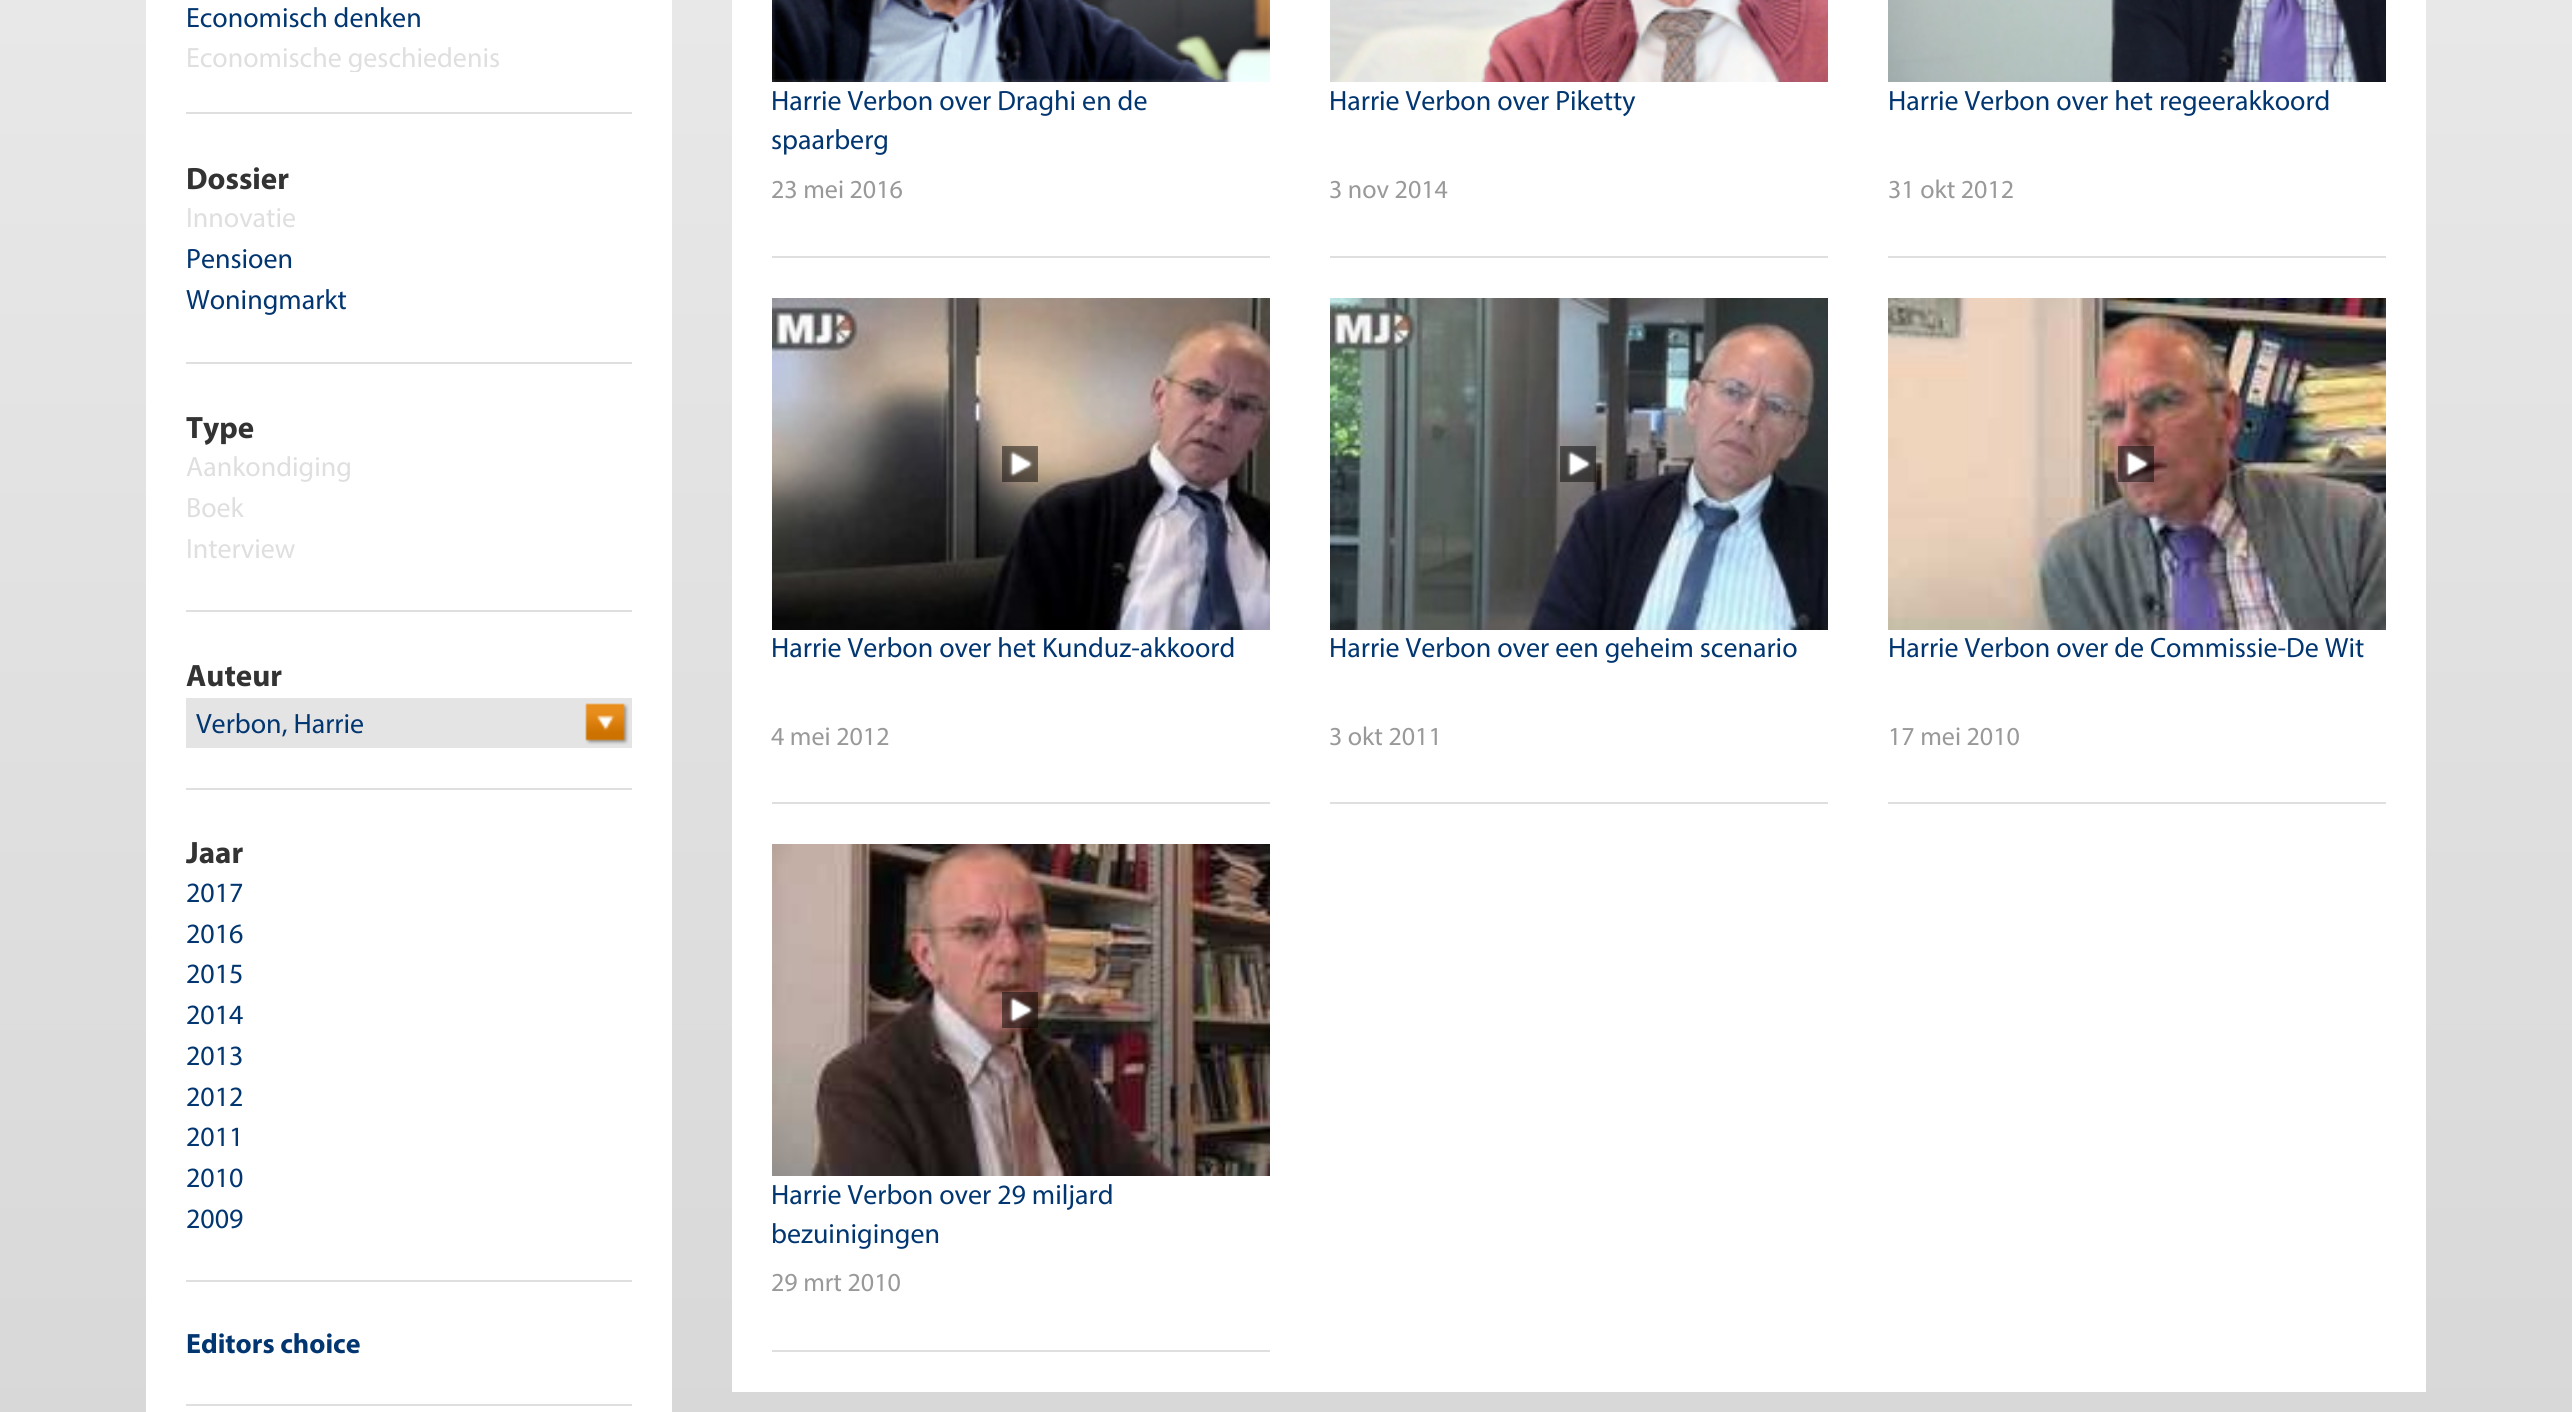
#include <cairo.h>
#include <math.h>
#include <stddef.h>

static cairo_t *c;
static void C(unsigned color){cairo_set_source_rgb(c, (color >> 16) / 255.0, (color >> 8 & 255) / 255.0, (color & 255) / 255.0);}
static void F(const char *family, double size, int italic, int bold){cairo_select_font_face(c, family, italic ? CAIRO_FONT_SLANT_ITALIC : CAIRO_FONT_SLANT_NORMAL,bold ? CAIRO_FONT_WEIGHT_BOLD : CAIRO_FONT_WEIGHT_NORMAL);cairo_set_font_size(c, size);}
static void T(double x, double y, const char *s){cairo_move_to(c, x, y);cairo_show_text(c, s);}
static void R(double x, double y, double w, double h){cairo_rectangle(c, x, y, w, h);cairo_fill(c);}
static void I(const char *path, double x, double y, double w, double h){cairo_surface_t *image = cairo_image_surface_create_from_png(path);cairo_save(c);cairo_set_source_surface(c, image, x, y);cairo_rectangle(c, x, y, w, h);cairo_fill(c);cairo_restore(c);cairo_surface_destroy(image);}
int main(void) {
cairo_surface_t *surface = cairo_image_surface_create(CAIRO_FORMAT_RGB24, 2572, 1412);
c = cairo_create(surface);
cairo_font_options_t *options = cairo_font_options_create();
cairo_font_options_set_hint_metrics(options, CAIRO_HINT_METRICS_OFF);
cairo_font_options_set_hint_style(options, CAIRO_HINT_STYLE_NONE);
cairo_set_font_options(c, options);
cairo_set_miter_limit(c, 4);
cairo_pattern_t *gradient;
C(0xffffff);
cairo_paint(c);
gradient = cairo_pattern_create_linear(1286,-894,1286,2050);
cairo_pattern_add_color_stop_rgba(gradient,0,0.949,0.949,0.949,1);
cairo_pattern_add_color_stop_rgba(gradient,1,0.82,0.82,0.82,1);
cairo_set_source(c,gradient);
cairo_pattern_destroy(gradient);
R(0,0,2572,1412);
C(0xffffff);
R(146,0,526,1412);
F("Myriad",28,0,0);
C(0x023671);
T(186,27,"Economisch denken");
cairo_save(c);
cairo_rectangle(c,186,0,446,72);
cairo_clip(c);
C(0xdfdfdf);
T(186,67,"Economische geschiedenis");
cairo_restore(c);
C(0xdfdfdf);
R(186,112,446,2);
F("Myriad",31,0,1);
C(0x333333);
T(186,189,"Dossier");
F("Myriad",28,0,0);
C(0xdfdfdf);
T(186,227,"Innovatie");
C(0x023671);
T(186,268,"Pensioen");
T(186,309,"Woningmarkt");
C(0xdfdfdf);
R(186,362,446,2);
F("Myriad",31,0,1);
C(0x333333);
T(186,438,"Type");
F("Myriad",28,0,0);
C(0xdfdfdf);
T(186,476,"Aankondiging");
T(186,517,"Boek");
T(186,558,"Interview");
R(186,610,446,2);
F("Myriad",31,0,1);
C(0x333333);
T(186,686,"Auteur");
C(0xe4e4e4);
R(186,698,446,50);
F("Myriad",28,0,0);
C(0x023671);
T(196,733,"Verbon, Harrie");
I("1.png",585,703,44,42);
C(0xdfdfdf);
R(186,788,446,2);
F("Myriad",31,0,1);
C(0x333333);
T(186,863,"Jaar");
F("Myriad",28,0,0);
C(0x023671);
T(186,902,"2017");
T(186,943,"2016");
T(186,983,"2015");
T(186,1024,"2014");
T(186,1065,"2013");
T(186,1106,"2012");
T(186,1146,"2011");
T(186,1187,"2010");
T(186,1228,"2009");
C(0xdfdfdf);
R(186,1280,446,2);
F("Myriad",28,0,1);
C(0x023671);
T(186,1353,"Editors choice");
C(0xdfdfdf);
R(186,1404,446,2);
C(0xffffff);
R(732,0,1694,1392);
C(0xdfdfdf);
R(772,256,498,2);
I("2.png",772,0,498,82);
F("Myriad",28,0,0);
C(0x023671);
T(771,110,"Harrie Verbon over Draghi en de");
T(771,149,"spaarberg");
F("Myriad",26,0,0);
C(0x999999);
T(771,198,"23 mei 2016");
C(0xdfdfdf);
R(1330,256,498,2);
I("3.png",1330,0,498,82);
F("Myriad",28,0,0);
C(0x023671);
T(1329,110,"Harrie Verbon over Piketty");
F("Myriad",26,0,0);
C(0x999999);
T(1329,198,"3 nov 2014");
C(0xdfdfdf);
R(1888,256,498,2);
I("4.png",1888,0,498,82);
F("Myriad",28,0,0);
C(0x023671);
T(1888,110,"Harrie Verbon over het regeerakkoord");
F("Myriad",26,0,0);
C(0x999999);
T(1888,198,"31 okt 2012");
C(0xdfdfdf);
R(772,802,498,2);
I("5.png",772,298,498,332);
I("6.png",1002,446,36,36);
F("Myriad",28,0,0);
C(0x023671);
T(771,657,"Harrie Verbon over het Kunduz-akkoord");
F("Myriad",26,0,0);
C(0x999999);
T(771,745,"4 mei 2012");
C(0xdfdfdf);
R(1330,802,498,2);
I("7.png",1330,298,498,332);
I("8.png",1560,446,36,36);
F("Myriad",28,0,0);
C(0x023671);
T(1329,657,"Harrie Verbon over een geheim scenario");
F("Myriad",26,0,0);
C(0x999999);
T(1329,745,"3 okt 2011");
C(0xdfdfdf);
R(1888,802,498,2);
I("9.png",1888,298,498,332);
I("10.png",2118,446,36,36);
F("Myriad",28,0,0);
C(0x023671);
T(1888,657,"Harrie Verbon over de Commissie-De Wit");
F("Myriad",26,0,0);
C(0x999999);
T(1888,745,"17 mei 2010");
C(0xdfdfdf);
R(772,1350,498,2);
I("11.png",772,844,498,332);
I("12.png",1002,992,36,36);
F("Myriad",28,0,0);
C(0x023671);
T(771,1204,"Harrie Verbon over 29 miljard");
T(771,1243,"bezuinigingen");
F("Myriad",26,0,0);
C(0x999999);
T(771,1291,"29 mrt 2010");
cairo_surface_write_to_png(surface, "o.png");
cairo_font_options_destroy(options);
cairo_destroy(c);
cairo_surface_destroy(surface);
return 0;
}
